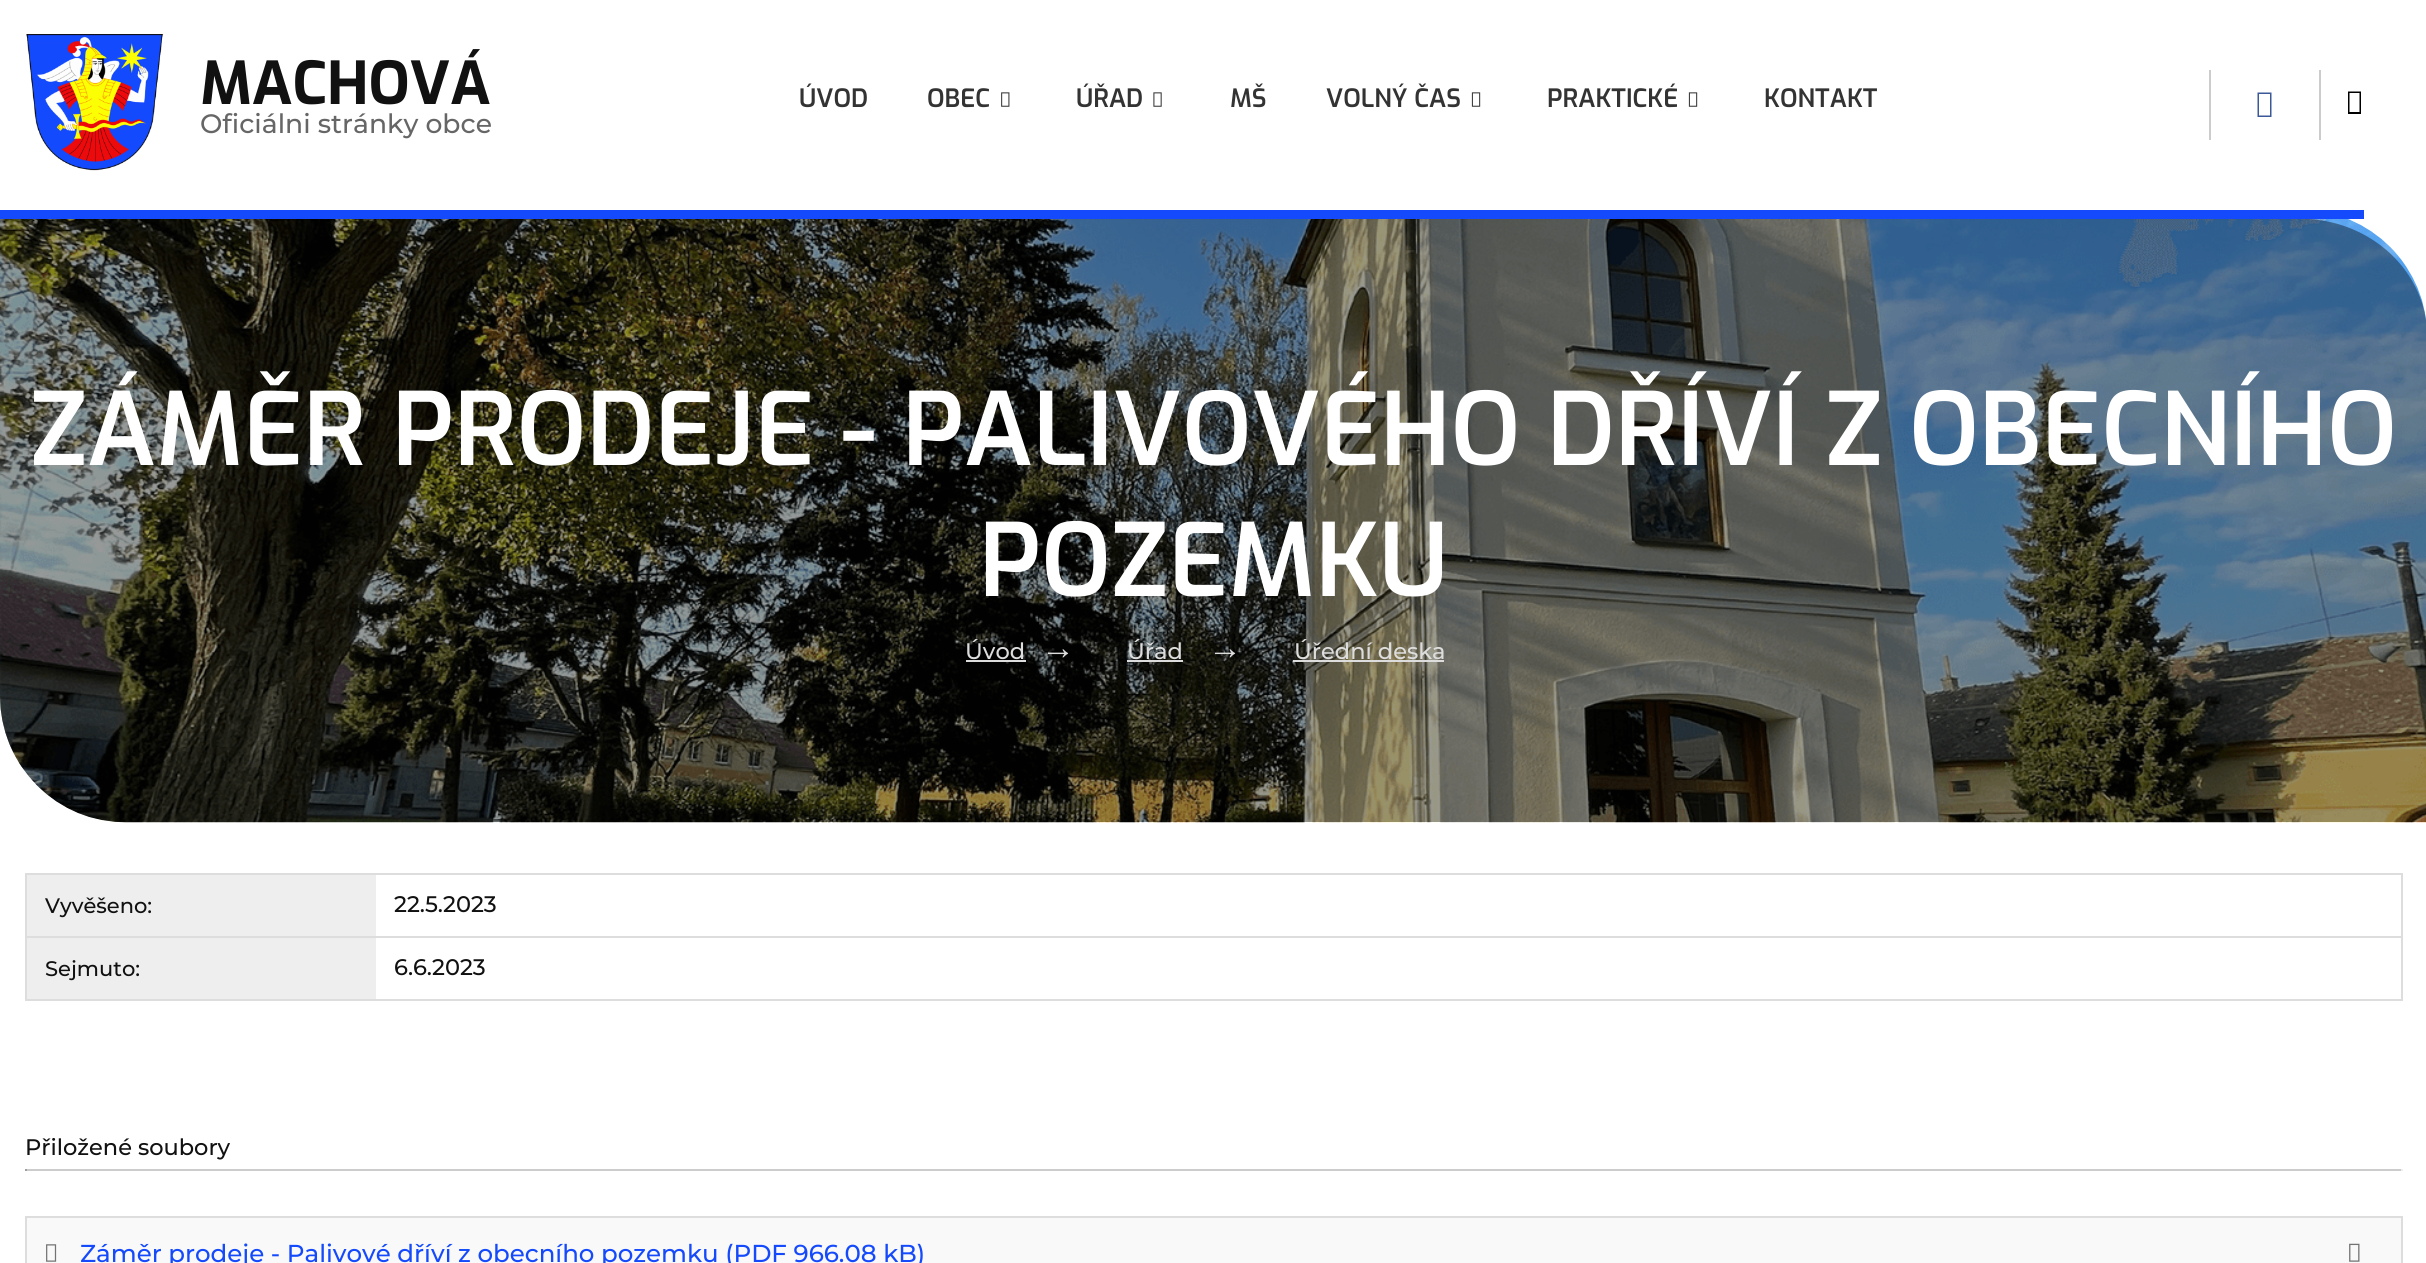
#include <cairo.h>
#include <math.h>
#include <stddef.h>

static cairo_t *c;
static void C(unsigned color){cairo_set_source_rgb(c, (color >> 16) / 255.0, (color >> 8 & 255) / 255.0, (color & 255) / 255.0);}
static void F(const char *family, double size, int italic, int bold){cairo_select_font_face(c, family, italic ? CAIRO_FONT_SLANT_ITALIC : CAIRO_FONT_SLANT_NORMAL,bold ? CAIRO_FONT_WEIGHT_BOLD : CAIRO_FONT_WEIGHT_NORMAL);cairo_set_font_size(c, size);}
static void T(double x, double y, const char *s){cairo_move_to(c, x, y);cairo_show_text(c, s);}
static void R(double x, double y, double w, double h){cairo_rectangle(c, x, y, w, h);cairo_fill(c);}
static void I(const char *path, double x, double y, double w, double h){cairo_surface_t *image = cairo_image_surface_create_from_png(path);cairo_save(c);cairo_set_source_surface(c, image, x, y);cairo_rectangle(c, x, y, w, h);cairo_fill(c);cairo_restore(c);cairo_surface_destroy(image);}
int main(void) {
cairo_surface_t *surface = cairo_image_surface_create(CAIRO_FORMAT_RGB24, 2426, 1263);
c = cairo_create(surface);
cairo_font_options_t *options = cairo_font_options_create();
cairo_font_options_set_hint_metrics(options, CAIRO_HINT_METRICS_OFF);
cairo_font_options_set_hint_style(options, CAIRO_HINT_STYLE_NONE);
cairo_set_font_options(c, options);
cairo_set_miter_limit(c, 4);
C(0xffffff);
cairo_paint(c);
I("1.png",26,34,138,137);
F("Exo",59,0,1);
C(0x111111);
T(200,104,"MACHOVÁ");
F("Montserrat Medium",26.6,0,0);
C(0x666666);
T(200,133,"Oficiálni stránky obce");
F("Exo SemiBold",25.25,0,0);
C(0x333333);
T(799,107,"ÚVOD");
T(927,107,"OBEC");
I("2.png",1001,92,9,15);
T(1076,107,"ÚŘAD");
I("3.png",1153,92,9,15);
T(1230,107,"MŠ");
T(1326,107,"VOLNÝ ČAS");
I("4.png",1471,92,10,15);
T(1547,107,"PRAKTICKÉ");
I("4.png",1688,92,10,15);
T(1764,107,"KONTAKT");
C(0xcccccc);
R(2319,70,2,70);
R(2209,70,2,70);
C(0x3b5998);
cairo_new_path(c);
cairo_move_to(c,2257.5,117);
cairo_line_to(c,2257.5,92.5);
cairo_line_to(c,2271.5,92.5);
cairo_line_to(c,2271.5,117);
cairo_close_path(c);
cairo_move_to(c,2259,115.5);
cairo_line_to(c,2270,115.5);
cairo_line_to(c,2270,94);
cairo_line_to(c,2259,94);
cairo_close_path(c);
cairo_fill(c);
C(0x000000);
cairo_new_path(c);
cairo_move_to(c,2348,114);
cairo_line_to(c,2348,91.5);
cairo_line_to(c,2361,91.5);
cairo_line_to(c,2361,114);
cairo_close_path(c);
cairo_move_to(c,2349.5,112);
cairo_line_to(c,2359.5,112);
cairo_line_to(c,2359.5,93);
cairo_line_to(c,2349.5,93);
cairo_close_path(c);
cairo_fill(c);
I("5.png",0,219,2426,604);
C(0x144afc);
R(0,210,2364,9);
cairo_set_source_rgba(c,0,0,0,0.4);
cairo_new_path(c);
cairo_move_to(c,0,219);
cairo_line_to(c,0,696);
cairo_curve_to(c,0,766,57,822,126,822);
cairo_line_to(c,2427,822);
cairo_line_to(c,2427,329);
cairo_curve_to(c,2423,270,2372,223,2309,219);
cairo_close_path(c);
cairo_fill(c);
F("Exo SemiBold",100.8,0,0);
C(0xffffff);
T(30,465,"ZÁMĚR PRODEJE - PALIVOVÉHO DŘÍVÍ Z OBECNÍHO");
T(979,596,"POZEMKU");
F("Montserrat Medium",22.5,0,0);
C(0xdddddd);
T(965,659,"Úvod");
R(966,660,60,2);
F("Liberation Sans",34,0,0);
T(1041,659,"→");
F("Montserrat Medium",22.5,0,0);
T(1127,659,"Úřad");
R(1127,660,56,2);
F("Liberation Sans",34,0,0);
T(1208,659,"→");
F("Montserrat Medium",22.5,0,0);
T(1294,659,"Úřední deska");
R(1293,660,151,2);
R(25,873,2378,2);
R(2401,873,2,128);
R(25,999,2378,2);
R(25,873,2,128);
C(0xeeeeee);
R(27,875,349,61);
F("Montserrat Medium",21,0,0);
C(0x111111);
T(45,913,"Vyvěšeno:");
F("Montserrat Medium",22.5,0,0);
T(394,912,"22.5.2023");
C(0xdddddd);
R(25,936,2378,2);
C(0xeeeeee);
R(27,938,349,61);
F("Montserrat Medium",21,0,0);
C(0x111111);
T(45,976,"Sejmuto:");
F("Montserrat Medium",22.5,0,0);
T(394,975,"6.6.2023");
T(25,1155,"Přiložené soubory");
C(0xcccccc);
R(25,1169,2378,2);
C(0xeeeeee);
R(2401,1169,2,2);
C(0x9f9f9f);
R(25,1169,2,2);
C(0xf9f9f9);
cairo_rectangle(c,26,1217,2376,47);
cairo_fill_preserve(c);
C(0xdddddd);
cairo_stroke(c);
I("6.png",46,1244,11,18);
F("Montserrat Medium",24.5,0,0);
C(0x144afc);
T(80,1262,"Záměr prodeje - Palivové dříví z obecního pozemku (PDF 966.08 kB)");
I("7.png",2349,1243,11,19);
cairo_surface_write_to_png(surface, "o.png");
cairo_font_options_destroy(options);
cairo_destroy(c);
cairo_surface_destroy(surface);
return 0;
}
